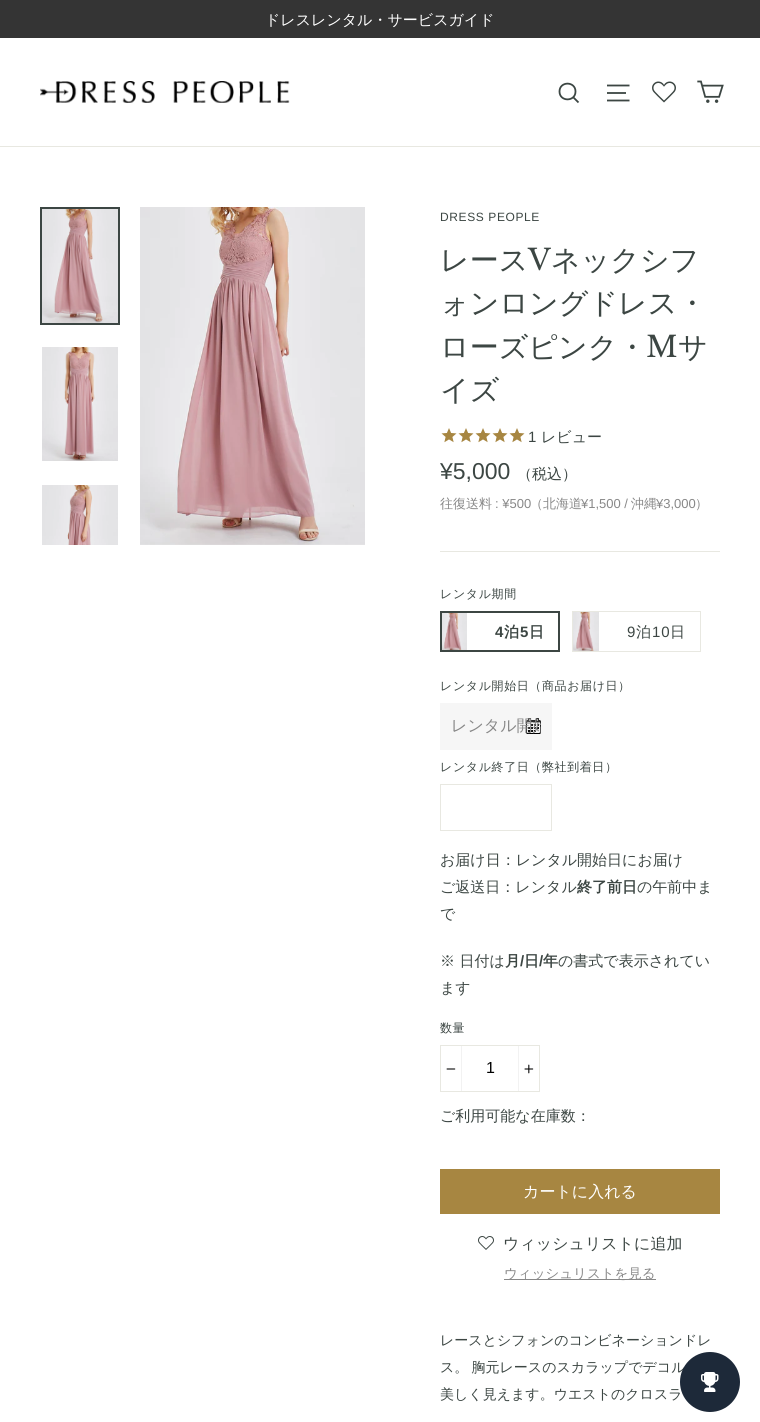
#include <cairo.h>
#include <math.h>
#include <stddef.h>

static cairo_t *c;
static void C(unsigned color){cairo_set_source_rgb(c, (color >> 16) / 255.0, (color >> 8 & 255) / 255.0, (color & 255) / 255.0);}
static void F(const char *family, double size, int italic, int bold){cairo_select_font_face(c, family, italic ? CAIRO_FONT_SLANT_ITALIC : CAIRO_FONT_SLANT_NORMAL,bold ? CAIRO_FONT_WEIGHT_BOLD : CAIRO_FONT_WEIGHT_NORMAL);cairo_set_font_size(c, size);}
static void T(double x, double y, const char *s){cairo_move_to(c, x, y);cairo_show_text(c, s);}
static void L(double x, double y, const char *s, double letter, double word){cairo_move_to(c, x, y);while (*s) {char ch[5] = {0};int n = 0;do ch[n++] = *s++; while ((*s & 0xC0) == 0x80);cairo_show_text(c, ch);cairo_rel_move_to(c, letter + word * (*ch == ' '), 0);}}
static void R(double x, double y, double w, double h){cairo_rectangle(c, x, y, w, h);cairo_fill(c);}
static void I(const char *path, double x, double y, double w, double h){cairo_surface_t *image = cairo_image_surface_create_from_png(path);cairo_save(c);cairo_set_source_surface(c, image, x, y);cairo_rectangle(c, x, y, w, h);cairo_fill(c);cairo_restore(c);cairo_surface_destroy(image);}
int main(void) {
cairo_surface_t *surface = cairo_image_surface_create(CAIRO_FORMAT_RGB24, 760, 1422);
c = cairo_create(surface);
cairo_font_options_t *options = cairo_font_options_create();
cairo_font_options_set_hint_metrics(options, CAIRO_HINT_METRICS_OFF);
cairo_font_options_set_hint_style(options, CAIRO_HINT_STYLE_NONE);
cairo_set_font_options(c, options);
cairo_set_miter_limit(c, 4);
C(0xffffff);
cairo_paint(c);
C(0x343434);
R(0,0,760,38);
F("WenQuanYi Zen Hei Medium",15,0,0);
C(0xffffff);
T(265,25,"ドレスレンタル・サービスガイド");
C(0xe8e8e1);
R(0,146,760,1);
I("1.png",40,81,250,22);
cairo_new_path(c);
cairo_move_to(c,575.5,91.5);
cairo_curve_to(c,575.5,102,559.5,102,559.5,91.5);
cairo_curve_to(c,559.5,81,575.5,81,575.5,91.5);
cairo_close_path(c);
cairo_move_to(c,578.5,102.5);
cairo_line_to(c,573.5,97.5);
C(0x3c4643);
cairo_set_line_width(c,1.8);
cairo_stroke(c);
cairo_new_path(c);
cairo_move_to(c,607,85.5);
cairo_line_to(c,629.5,85.5);
cairo_move_to(c,607,93);
cairo_line_to(c,626,93);
cairo_move_to(c,607,100.5);
cairo_line_to(c,629.5,100.5);
cairo_stroke(c);
I("2.png",652,81,24,22);
I("3.png",697,80,27,23);
cairo_rectangle(c,41,208,78,116);
cairo_set_line_width(c,2);
cairo_stroke(c);
I("4.png",42,209,76,114);
I("5.png",42,347,76,114);
I("6.png",42,485,76,60);
I("7.png",140,207,225,338);
F("Liberation Sans",12,0,0);
L(440,221,"DRESS PEOPLE",.6,0);
F("WenQuanYi Zen Hei Medium",29,0,0);
T(440,270,"レース");
F("Libre Baskerville",29,0,0);
T(528,270,"V");
F("WenQuanYi Zen Hei Medium",29,0,0);
T(551,270,"ネックシフ");
T(440,313,"ォンロングドレス・");
T(440,357,"ローズピンク・");
F("Libre Baskerville",29,0,0);
T(646,357,"M");
F("WenQuanYi Zen Hei Medium",29,0,0);
T(678,357,"サ");
T(440,400,"イズ");
I("8.png",441,428,16,15);
I("8.png",458,428,16,15);
I("8.png",475,428,16,15);
I("8.png",492,428,16,15);
I("8.png",509,428,16,15);
F("Liberation Sans",15,0,0);
T(528,442,"1");
F("WenQuanYi Zen Hei Medium",15,0,0);
T(541,442,"レビュー");
F("Liberation Sans",23,0,0);
T(440,479,"¥5,000");
F("WenQuanYi Zen Hei Medium",15,0,0);
T(517,479,"（税込）");
F("WenQuanYi Zen Hei Medium",13,0,0);
C(0x888888);
T(440,508,"往復送料");
F("Liberation Sans",13,0,0);
T(495,508,": ¥500");
F("WenQuanYi Zen Hei Medium",13,0,0);
T(530,508,"（北海道");
F("Liberation Sans",13,0,0);
T(581,508,"¥1,500 /");
F("WenQuanYi Zen Hei Medium",13,0,0);
T(631,508,"沖縄");
F("Liberation Sans",13,0,0);
T(656,508,"¥3,000");
F("WenQuanYi Zen Hei Medium",13,0,0);
T(695,508,"）");
C(0xe8e8e1);
R(440,551,280,1);
F("WenQuanYi Zen Hei Medium",12,0,0);
C(0x3c4643);
L(440,598,"レンタル期間",.6,0);
I("9.png",442,613,25,37);
cairo_rectangle(c,441,612,118,39);
cairo_stroke(c);
F("Liberation Sans",15,0,1);
L(495,637,"4",1,0);
F("WenQuanYi Zen Hei",15,0,1);
L(504,637,"泊",1,0);
F("Liberation Sans",15,0,1);
L(520,637,"5",1,0);
F("WenQuanYi Zen Hei",15,0,1);
L(529,637,"日",1,0);
I("10.png",573,612,26,39);
cairo_rectangle(c,572.5,611.5,128,40);
C(0xe8e8e1);
cairo_set_line_width(c,1);
cairo_stroke(c);
F("Liberation Sans",15,0,0);
C(0x3c4643);
L(627,637,"9",1,0);
F("WenQuanYi Zen Hei Medium",15,0,0);
L(636,637,"泊",1,0);
F("Liberation Sans",15,0,0);
L(652,637,"10",1,0);
F("WenQuanYi Zen Hei Medium",15,0,0);
L(670,637,"日",1,0);
F("WenQuanYi Zen Hei Medium",12,0,0);
L(440,690,"レンタル開始日（商品お届け日）",.6,0);
C(0xf6f6f6);
R(440,703,112,47);
I("11.png",525,718,16,16);
cairo_save(c);
cairo_rectangle(c,451,716,90,21);
cairo_clip(c);
F("WenQuanYi Zen Hei Medium",16,0,0);
C(0x888888);
T(451,731,"レンタル開始");
cairo_restore(c);
C(0x3c4643);
L(440,771,"レンタル終了日（弊社到着日）",.6,0);
cairo_rectangle(c,440.5,784.5,111,46);
C(0xe8e8e1);
cairo_stroke(c);
F("WenQuanYi Zen Hei Medium",15,0,0);
C(0x3c4643);
T(440,865,"お届け日：レンタル開始日にお届け");
T(440,892,"ご返送日：レンタル");
F("WenQuanYi Zen Hei",15,0,1);
T(577,892,"終了前日");
F("WenQuanYi Zen Hei Medium",15,0,0);
T(637,892,"の午前中ま");
T(440,919,"で");
T(440,966,"※ 日付は");
F("WenQuanYi Zen Hei",15,0,1);
T(505,966,"月");
F("Liberation Sans",15,0,1);
T(520,966,"/");
F("WenQuanYi Zen Hei",15,0,1);
T(524,966,"日");
F("Liberation Sans",15,0,1);
T(539,966,"/");
F("WenQuanYi Zen Hei",15,0,1);
T(543,966,"年");
F("WenQuanYi Zen Hei Medium",15,0,0);
T(558,966,"の書式で表示されてい");
T(440,993,"ます");
F("WenQuanYi Zen Hei Medium",12,0,0);
L(440,1032,"数量",.6,0);
cairo_rectangle(c,440.5,1045.5,99,46);
C(0xe8e8e1);
cairo_stroke(c);
C(0xf2f2f2);
R(461,1046,1,45);
I("12.png",446,1068,10,2);
F("Liberation Sans",16,0,0);
C(0x000000);
T(486,1073,"1");
C(0xf2f2f2);
R(518,1046,1,45);
I("13.png",524,1064,10,10);
F("WenQuanYi Zen Hei Medium",15,0,0);
C(0x3c4643);
T(440,1121,"ご利用可能な在庫数：");
C(0xa78641);
R(440,1169,280,45);
F("WenQuanYi Zen Hei Medium",16,0,0);
C(0xffffff);
T(523,1197,"カートに入れる");
I("14.png",478,1236,16,14);
C(0x3c4643);
T(503,1249,"ウィッシュリストに追加");
C(0x888888);
R(504,1279,152,1);
F("WenQuanYi Zen Hei Medium",13.5,0,0);
T(504,1278,"ウィッシュリストを見る");
F("WenQuanYi Zen Hei Medium",14,0,0);
C(0x3c4643);
T(440,1345,"レースとシフォンのコンビネーションドレ");
L(440,1372,"ス。 胸元レースのスカラップでデコル",0,-1);
T(440,1399,"美しく見えます。ウエストのクロスラ");
C(0x1d2939);
cairo_new_path(c);
cairo_arc(c,710,1382,30,0,2 * M_PI);
cairo_fill(c);
I("15.png",701,1372,18,20);
cairo_surface_write_to_png(surface, "o.png");
cairo_font_options_destroy(options);
cairo_destroy(c);
cairo_surface_destroy(surface);
return 0;
}
